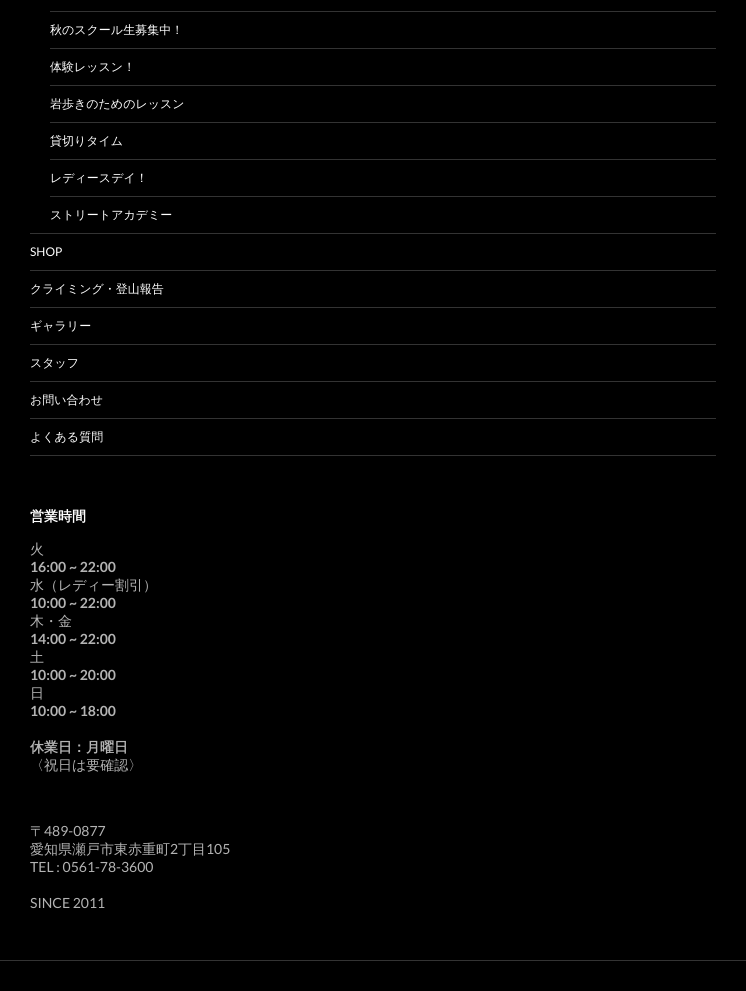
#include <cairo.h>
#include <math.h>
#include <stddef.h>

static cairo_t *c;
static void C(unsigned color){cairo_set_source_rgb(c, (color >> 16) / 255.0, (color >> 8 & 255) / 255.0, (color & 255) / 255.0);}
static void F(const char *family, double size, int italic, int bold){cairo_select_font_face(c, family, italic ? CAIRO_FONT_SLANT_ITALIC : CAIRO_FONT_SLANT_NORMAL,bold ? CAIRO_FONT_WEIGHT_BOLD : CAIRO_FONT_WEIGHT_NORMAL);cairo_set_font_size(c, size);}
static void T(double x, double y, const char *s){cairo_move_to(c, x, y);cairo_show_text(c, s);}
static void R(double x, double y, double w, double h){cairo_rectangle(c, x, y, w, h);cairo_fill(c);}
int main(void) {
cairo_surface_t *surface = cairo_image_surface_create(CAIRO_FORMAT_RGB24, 746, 991);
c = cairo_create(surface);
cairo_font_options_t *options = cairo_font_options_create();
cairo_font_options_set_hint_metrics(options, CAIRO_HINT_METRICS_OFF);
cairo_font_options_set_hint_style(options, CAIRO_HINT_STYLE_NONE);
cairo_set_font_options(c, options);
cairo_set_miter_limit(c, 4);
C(0x000000);
cairo_paint(c);
C(0x333333);
R(0,960,746,1);
R(30,455,686,1);
R(50,11,666,1);
F("WenQuanYi Zen Hei Medium",12,0,0);
C(0xffffff);
T(50,34,"秋のスクール生募集中！");
C(0x333333);
R(50,48,666,1);
C(0xffffff);
T(50,71,"体験レッスン！");
C(0x333333);
R(50,85,666,1);
C(0xffffff);
T(50,108,"岩歩きのためのレッスン");
C(0x333333);
R(50,122,666,1);
C(0xffffff);
T(50,145,"貸切りタイム");
C(0x333333);
R(50,159,666,1);
C(0xffffff);
T(50,182,"レディースデイ！");
C(0x333333);
R(50,196,666,1);
C(0xffffff);
T(50,219,"ストリートアカデミー");
C(0x333333);
R(30,233,686,1);
F("Lato",12,0,0);
C(0xffffff);
T(30,256,"SHOP");
C(0x333333);
R(30,270,686,1);
F("WenQuanYi Zen Hei Medium",12,0,0);
C(0xffffff);
T(30,293,"クライミング・登山報告");
C(0x333333);
R(30,307,686,1);
C(0xffffff);
T(30,330,"ギャラリー");
C(0x333333);
R(30,344,686,1);
C(0xffffff);
T(30,367,"スタッフ");
C(0x333333);
R(30,381,686,1);
C(0xffffff);
T(30,404,"お問い合わせ");
C(0x333333);
R(30,418,686,1);
C(0xffffff);
T(30,441,"よくある質問");
F("WenQuanYi Zen Hei",14,0,1);
T(30,521,"営業時間");
F("WenQuanYi Zen Hei Medium",14,0,0);
C(0xb3b3b3);
T(30,554,"火");
F("Lato",14,0,1);
T(30,572,"16:00 ~ 22:00");
F("WenQuanYi Zen Hei Medium",14,0,0);
T(30,590,"水（レディー割引）");
F("Lato",14,0,1);
T(30,608,"10:00 ~ 22:00");
F("WenQuanYi Zen Hei Medium",14,0,0);
T(30,626,"木・金");
F("Lato",14,0,1);
T(30,644,"14:00 ~ 22:00");
F("WenQuanYi Zen Hei Medium",14,0,0);
T(30,662,"土");
F("Lato",14,0,1);
T(30,680,"10:00 ~ 20:00");
F("WenQuanYi Zen Hei Medium",14,0,0);
T(30,698,"日");
F("Lato",14,0,1);
T(30,716,"10:00 ~ 18:00");
F("WenQuanYi Zen Hei",14,0,1);
T(30,752,"休業日：月曜日");
F("WenQuanYi Zen Hei Medium",14,0,0);
T(30,770,"〈祝日は要確認〉");
T(30,836,"〒");
F("Lato",14,0,0);
T(44,836,"489-0877");
F("WenQuanYi Zen Hei Medium",14,0,0);
T(30,854,"愛知県瀬戸市東赤重町");
F("Lato",14,0,0);
T(170,854,"2");
F("WenQuanYi Zen Hei Medium",14,0,0);
T(178,854,"丁目");
F("Lato",14,0,0);
T(206,854,"105");
T(30,872,"TEL : 0561-78-3600");
T(30,908,"SINCE 2011");
cairo_surface_write_to_png(surface, "o.png");
cairo_font_options_destroy(options);
cairo_destroy(c);
cairo_surface_destroy(surface);
return 0;
}
